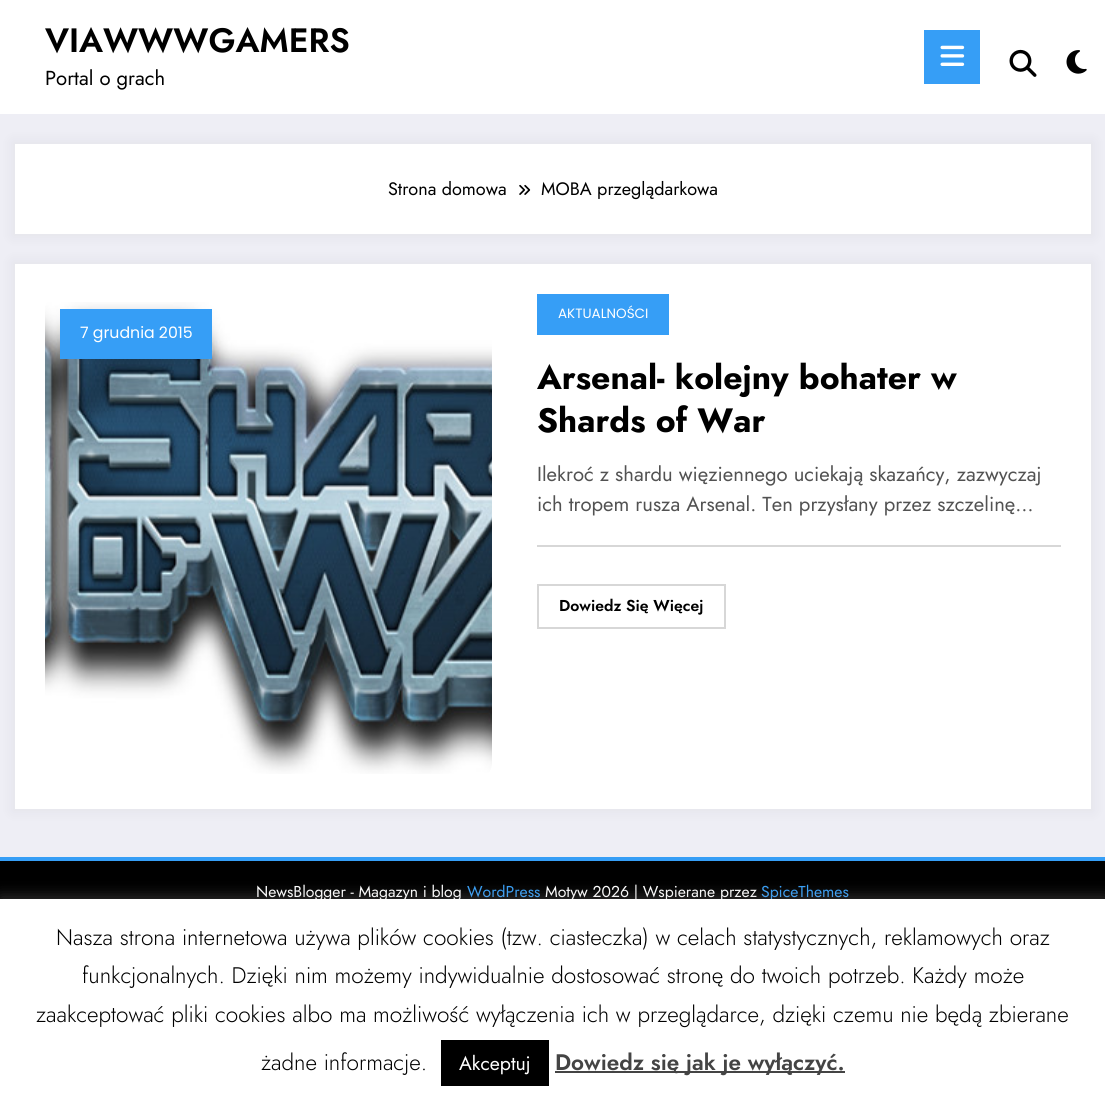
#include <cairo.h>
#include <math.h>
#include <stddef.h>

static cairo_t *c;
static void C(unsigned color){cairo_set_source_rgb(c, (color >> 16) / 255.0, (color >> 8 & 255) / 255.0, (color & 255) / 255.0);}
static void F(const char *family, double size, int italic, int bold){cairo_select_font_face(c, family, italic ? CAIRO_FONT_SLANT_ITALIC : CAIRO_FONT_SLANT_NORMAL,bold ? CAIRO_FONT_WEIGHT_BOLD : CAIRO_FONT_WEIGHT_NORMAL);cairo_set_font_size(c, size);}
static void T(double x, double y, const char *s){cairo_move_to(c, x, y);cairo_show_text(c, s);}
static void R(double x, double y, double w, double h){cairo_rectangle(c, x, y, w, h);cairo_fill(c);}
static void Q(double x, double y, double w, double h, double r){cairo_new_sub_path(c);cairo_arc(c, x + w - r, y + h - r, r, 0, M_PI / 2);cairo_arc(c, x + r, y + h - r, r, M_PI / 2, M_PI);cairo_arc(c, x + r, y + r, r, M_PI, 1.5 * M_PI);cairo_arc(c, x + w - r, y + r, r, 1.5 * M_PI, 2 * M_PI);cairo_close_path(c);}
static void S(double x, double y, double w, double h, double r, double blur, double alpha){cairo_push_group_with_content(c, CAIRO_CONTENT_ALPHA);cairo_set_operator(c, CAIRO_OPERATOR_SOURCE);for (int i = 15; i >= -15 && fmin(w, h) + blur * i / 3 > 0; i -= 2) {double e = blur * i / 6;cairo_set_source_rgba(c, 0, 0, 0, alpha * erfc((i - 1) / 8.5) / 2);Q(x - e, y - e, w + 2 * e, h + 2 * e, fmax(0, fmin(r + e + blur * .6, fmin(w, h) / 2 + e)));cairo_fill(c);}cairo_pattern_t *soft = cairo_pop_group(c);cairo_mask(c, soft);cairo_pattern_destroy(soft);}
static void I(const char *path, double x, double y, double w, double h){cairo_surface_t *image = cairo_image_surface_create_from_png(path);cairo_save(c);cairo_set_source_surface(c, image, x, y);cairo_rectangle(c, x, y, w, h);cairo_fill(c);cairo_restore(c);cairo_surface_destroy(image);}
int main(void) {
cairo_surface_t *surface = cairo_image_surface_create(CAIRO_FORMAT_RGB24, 1105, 1103);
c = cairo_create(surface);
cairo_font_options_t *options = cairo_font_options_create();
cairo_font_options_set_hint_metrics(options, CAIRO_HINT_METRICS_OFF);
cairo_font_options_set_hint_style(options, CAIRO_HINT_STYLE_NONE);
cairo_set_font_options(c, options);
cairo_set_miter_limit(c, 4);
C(0xeeeef5);
cairo_paint(c);
C(0xffffff);
R(0,0,1105,114);
F("Jost SemiBold",33.75,0,0);
C(0x000000);
T(45,52,"VIAWWWGAMERS");
F("Jost",20.25,0,0);
T(45,85,"Portal o grach");
C(0x369ef6);
R(924,30,56,54);
I("1.png",940,45,25,21);
I("2.png",1009,49,28,28);
I("3.png",1066,50,21,24);
C(0x171723);
S(12,141,1082,96,0,6,.05);
C(0xffffff);
R(15,144,1076,90);
F("Jost",18,0,0);
C(0x000000);
T(388,195,"Strona domowa");
I("4.png",519,184,12,11);
T(541,195,"MOBA przeglądarkowa");
C(0x171723);
S(12,261,1082,551,0,6,.05);
C(0xffffff);
R(15,264,1076,545);
I("5.png",45,302,447,472);
C(0x369ef6);
R(60,309,152,50);
F("Poppins",15.75,0,0);
C(0xffffff);
T(80,338,"7 grudnia 2015");
C(0x369ef6);
R(537,294,132,41);
F("Poppins",13.5,0,0);
C(0xffffff);
T(558,318,"AKTUALNOŚCI");
F("Jost",33.75,0,1);
C(0x000000);
T(537,389,"Arsenal- kolejny bohater w");
T(537,432,"Shards of War");
C(0xd7d7d7);
R(537,545,524,2);
F("Jost",20.25,0,0);
C(0x525252);
T(537,481,"Ilekroć z shardu więziennego uciekają skazańcy, zazwyczaj");
T(537,511,"ich tropem rusza Arsenal. Ten przysłany przez szczelinę…");
cairo_rectangle(c,538,585,187,43);
C(0xd7d7d7);
cairo_stroke(c);
F("Jost SemiBold",15.75,0,0);
C(0x000000);
T(559,611,"Dowiedz Się Więcej");
C(0x369ef6);
R(0,857,1105,4);
C(0x000000);
R(0,861,1105,38);
F("Jost",15.75,0,0);
C(0xffffff);
T(256,897,"NewsBlogger - Magazyn i blog");
C(0x369ef6);
T(467,897,"WordPress");
C(0xffffff);
T(545,897,"Motyw 2026 | Wspierane przez");
C(0x369ef6);
T(761,897,"SpiceThemes");
C(0xacabab);
S(0,897,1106,206,0,7.5,.3);
C(0xffffff);
R(0,899,1105,204);
F("Jost Light",22.5,0,0);
C(0x000000);
T(56,945,"Nasza strona internetowa używa plików cookies (tzw. ciasteczka) w celach statystycznych, reklamowych oraz");
T(82,983,"funkcjonalnych. Dzięki nim możemy indywidualnie dostosować stronę do twoich potrzeb. Każdy może");
T(36,1022,"zaakceptować pliki cookies albo ma możliwość wyłączenia ich w przeglądarce, dzięki czemu nie będą zbierane");
T(261,1070,"żadne informacje.");
R(441,1040,108,46);
F("Jost",19.5,0,0);
C(0xffffff);
T(459,1070,"Akceptuj");
C(0x444444);
R(555,1071,290,2);
F("Jost SemiBold",22.5,0,0);
T(555,1070,"Dowiedz się jak je wyłączyć.");
cairo_surface_write_to_png(surface, "o.png");
cairo_font_options_destroy(options);
cairo_destroy(c);
cairo_surface_destroy(surface);
return 0;
}
